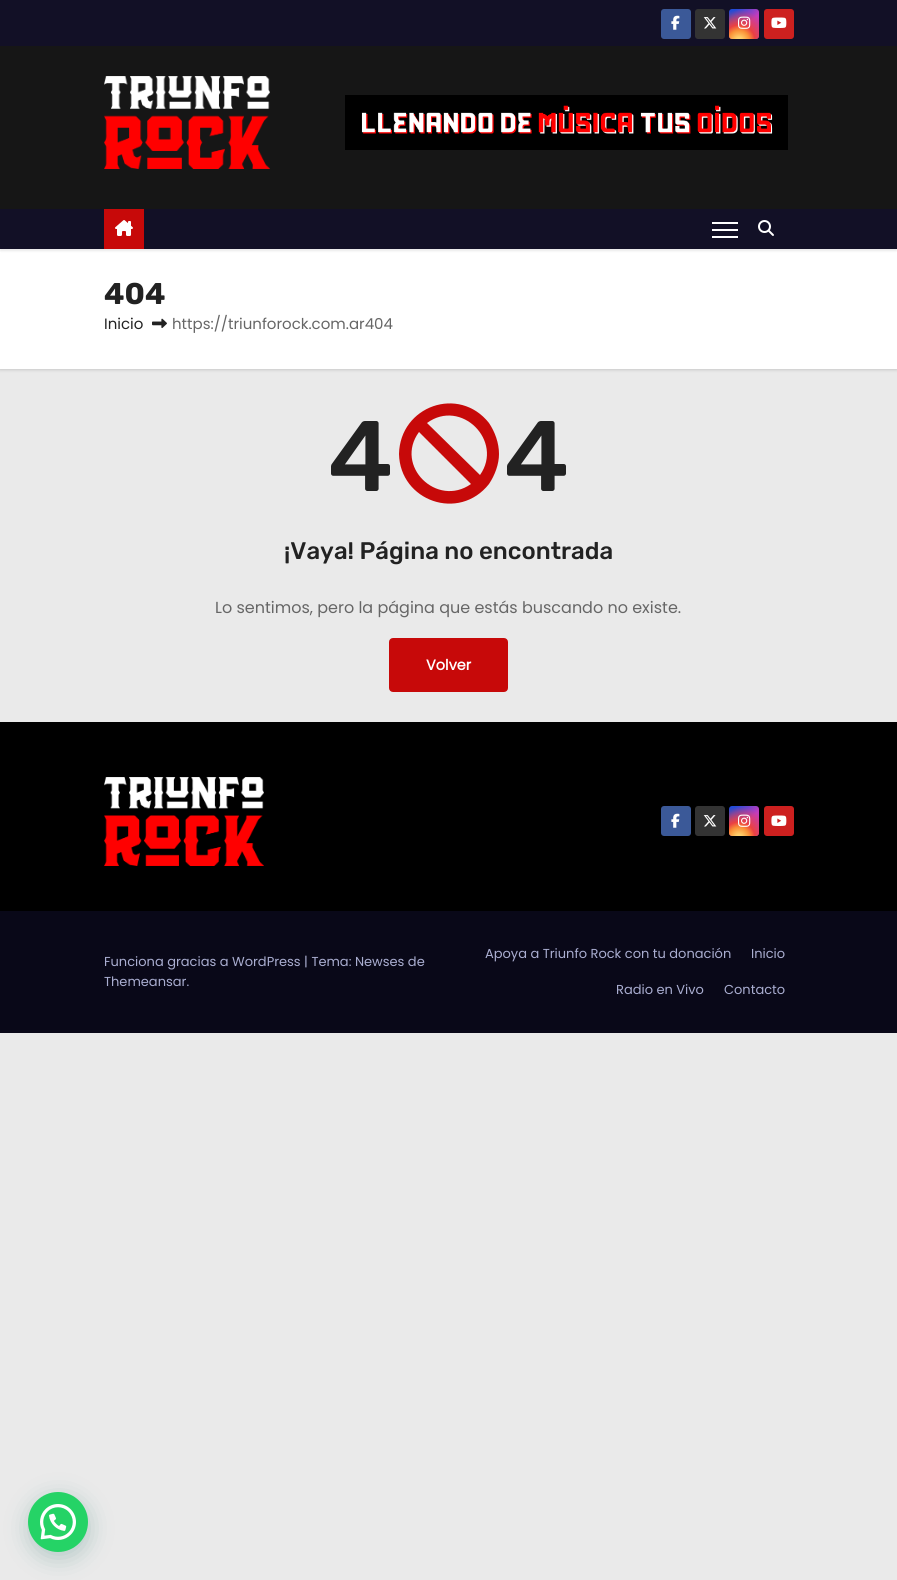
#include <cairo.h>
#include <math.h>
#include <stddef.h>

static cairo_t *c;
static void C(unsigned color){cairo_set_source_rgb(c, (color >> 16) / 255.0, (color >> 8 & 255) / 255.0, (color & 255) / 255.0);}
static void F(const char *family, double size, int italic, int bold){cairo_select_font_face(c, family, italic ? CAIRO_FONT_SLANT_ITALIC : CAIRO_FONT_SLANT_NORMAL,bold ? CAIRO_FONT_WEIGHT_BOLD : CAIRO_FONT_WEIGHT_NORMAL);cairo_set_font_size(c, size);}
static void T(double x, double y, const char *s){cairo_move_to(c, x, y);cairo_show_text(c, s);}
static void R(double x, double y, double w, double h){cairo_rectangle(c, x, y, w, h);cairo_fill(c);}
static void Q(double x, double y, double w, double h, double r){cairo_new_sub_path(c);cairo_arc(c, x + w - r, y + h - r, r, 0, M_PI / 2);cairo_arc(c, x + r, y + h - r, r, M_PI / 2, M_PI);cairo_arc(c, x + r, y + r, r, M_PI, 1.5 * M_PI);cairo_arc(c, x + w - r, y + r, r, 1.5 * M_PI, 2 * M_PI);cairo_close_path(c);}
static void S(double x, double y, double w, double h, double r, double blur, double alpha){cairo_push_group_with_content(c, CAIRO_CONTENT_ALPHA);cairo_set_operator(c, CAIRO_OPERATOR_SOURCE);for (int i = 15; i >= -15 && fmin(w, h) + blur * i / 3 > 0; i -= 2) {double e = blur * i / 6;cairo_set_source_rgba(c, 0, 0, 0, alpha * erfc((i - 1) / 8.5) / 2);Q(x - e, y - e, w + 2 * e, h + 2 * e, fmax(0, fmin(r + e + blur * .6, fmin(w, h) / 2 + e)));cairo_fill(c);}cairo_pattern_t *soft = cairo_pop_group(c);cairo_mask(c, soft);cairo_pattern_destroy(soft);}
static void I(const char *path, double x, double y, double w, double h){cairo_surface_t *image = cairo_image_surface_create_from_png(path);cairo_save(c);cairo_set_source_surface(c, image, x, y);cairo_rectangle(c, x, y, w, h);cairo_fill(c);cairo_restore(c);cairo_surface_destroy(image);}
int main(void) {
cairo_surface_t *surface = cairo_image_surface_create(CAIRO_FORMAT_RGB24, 897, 1580);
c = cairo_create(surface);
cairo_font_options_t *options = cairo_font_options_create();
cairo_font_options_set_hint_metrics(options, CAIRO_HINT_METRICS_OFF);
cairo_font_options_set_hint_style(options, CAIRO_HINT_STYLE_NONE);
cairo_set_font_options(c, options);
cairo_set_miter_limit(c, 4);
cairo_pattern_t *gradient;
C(0xeaeaea);
cairo_paint(c);
C(0x121026);
R(0,0,897,46);
C(0x3b5998);
Q(661,9,30,30,3);
cairo_fill(c);
I("1.png",671,15,9,15);
C(0x333333);
Q(695,9,30,30,3);
cairo_fill(c);
I("2.png",703,17,14,12);
gradient = cairo_pattern_create_linear(729,9,759,39);
cairo_pattern_add_color_stop_rgba(gradient,.12,0.137,0.294,0.843,1);
cairo_pattern_add_color_stop_rgba(gradient,.58,0.765,0.235,0.745,1);
cairo_set_source(c,gradient);
cairo_pattern_destroy(gradient);
Q(729,9,30,30,3);
cairo_fill(c);
gradient = cairo_pattern_create_radial(739,41,0,739,41,38);
cairo_pattern_add_color_stop_rgba(gradient,0,1,0.882,0.49,1);
cairo_pattern_add_color_stop_rgba(gradient,.1,1,0.804,0.412,1);
cairo_pattern_add_color_stop_rgba(gradient,.28,0.98,0.569,0.216,1);
cairo_pattern_add_color_stop_rgba(gradient,.42,0.922,0.255,0.255,1);
cairo_pattern_add_color_stop_rgba(gradient,.82,0.922,0.255,0.255,0);
cairo_set_source(c,gradient);
cairo_pattern_destroy(gradient);
Q(729,9,30,30,3);
cairo_fill(c);
I("3.png",738,16,13,13);
C(0xcd201f);
Q(764,9,30,30,3);
cairo_fill(c);
I("4.png",771,17,16,11);
C(0x161616);
R(0,46,897,163);
I("5.png",104,76,166,93);
I("6.png",345,95,443,55);
C(0x000000);
S(0,250,897,120,0,1.5,.15);
C(0xffffff);
R(0,249,897,120);
C(0x000000);
S(0,211,897,40,0,1,.08);
C(0x121026);
R(0,209,897,40);
C(0xc70909);
R(104,209,40,40);
I("7.png",115,220,18,16);
C(0xffffff);
R(712,222,26,2);
R(712,229,26,2);
R(712,236,26,2);
I("8.png",758,220,16,16);
F("Rubik",30,0,1);
C(0x222222);
T(104,304,"404");
F("Poppins",15,0,0);
T(104,329,"Inicio");
I("9.png",152,318,15,10);
C(0x666666);
T(172,329,"https://triunforock.com.ar404");
F("Rubik Medium",100,0,0);
C(0x222222);
T(328,491,"4");
C(0xc70909);
cairo_new_path(c);
cairo_move_to(c,471,484);
cairo_line_to(c,419,432);
cairo_curve_to(c,394,466,437,508,471,484);
cairo_close_path(c);
cairo_move_to(c,480,475);
cairo_curve_to(c,504,441,461,398,427,423);
cairo_close_path(c);
cairo_move_to(c,399,454);
cairo_curve_to(c,400,406,459,385,489,423);
cairo_curve_to(c,495,432,499,443,499,454);
cairo_curve_to(c,499,464,495,475,489,484);
cairo_curve_to(c,459,522,400,501,399,454);
cairo_close_path(c);
cairo_fill(c);
C(0x222222);
T(504,491,"4");
F("Rubik Medium",24,0,0);
T(284,559,"¡Vaya! Página no encontrada");
F("Poppins",16,0,0);
C(0x666666);
T(215,613,"Lo sentimos, pero la página que estás buscando no existe.");
C(0xc70909);
Q(390,639,117,52,3);
cairo_fill_preserve(c);
cairo_stroke(c);
F("Poppins",14.5,0,1);
C(0xffffff);
T(426,670,"Volver");
C(0x000000);
R(0,722,897,189);
I("10.png",104,777,160,89);
C(0x3b5998);
Q(661,806,30,30,3);
cairo_fill(c);
I("1.png",671,813,9,15);
C(0x333333);
Q(695,806,30,30,3);
cairo_fill(c);
I("2.png",703,815,14,12);
gradient = cairo_pattern_create_linear(729,806,759,836);
cairo_pattern_add_color_stop_rgba(gradient,.12,0.137,0.294,0.843,1);
cairo_pattern_add_color_stop_rgba(gradient,.58,0.765,0.235,0.745,1);
cairo_set_source(c,gradient);
cairo_pattern_destroy(gradient);
Q(729,806,30,30,3);
cairo_fill(c);
gradient = cairo_pattern_create_radial(739,838,0,739,838,38);
cairo_pattern_add_color_stop_rgba(gradient,0,1,0.882,0.49,1);
cairo_pattern_add_color_stop_rgba(gradient,.1,1,0.804,0.412,1);
cairo_pattern_add_color_stop_rgba(gradient,.28,0.98,0.569,0.216,1);
cairo_pattern_add_color_stop_rgba(gradient,.42,0.922,0.255,0.255,1);
cairo_pattern_add_color_stop_rgba(gradient,.82,0.922,0.255,0.255,0);
cairo_set_source(c,gradient);
cairo_pattern_destroy(gradient);
Q(729,806,30,30,3);
cairo_fill(c);
I("11.png",738,814,13,13);
C(0xcd201f);
Q(764,806,30,30,3);
cairo_fill(c);
I("4.png",771,815,16,11);
C(0x090818);
R(0,911,897,122);
F("Poppins",13,0,0);
C(0xaaaed1);
T(104,966,"Funciona gracias a WordPress | Tema: Newses de");
T(104,986,"Themeansar.");
T(485,958,"Apoya a Triunfo Rock con tu donación");
T(751,958,"Inicio");
T(616,994,"Radio en Vivo");
T(724,994,"Contacto");
C(0x075e54);
S(29,1498,60,60,30,12,.24);
C(0x25d366);
cairo_arc(c,58,1522,30,0,2 * M_PI);
cairo_fill(c);
I("12.png",40,1504,36,36);
cairo_surface_write_to_png(surface, "o.png");
cairo_font_options_destroy(options);
cairo_destroy(c);
cairo_surface_destroy(surface);
return 0;
}
